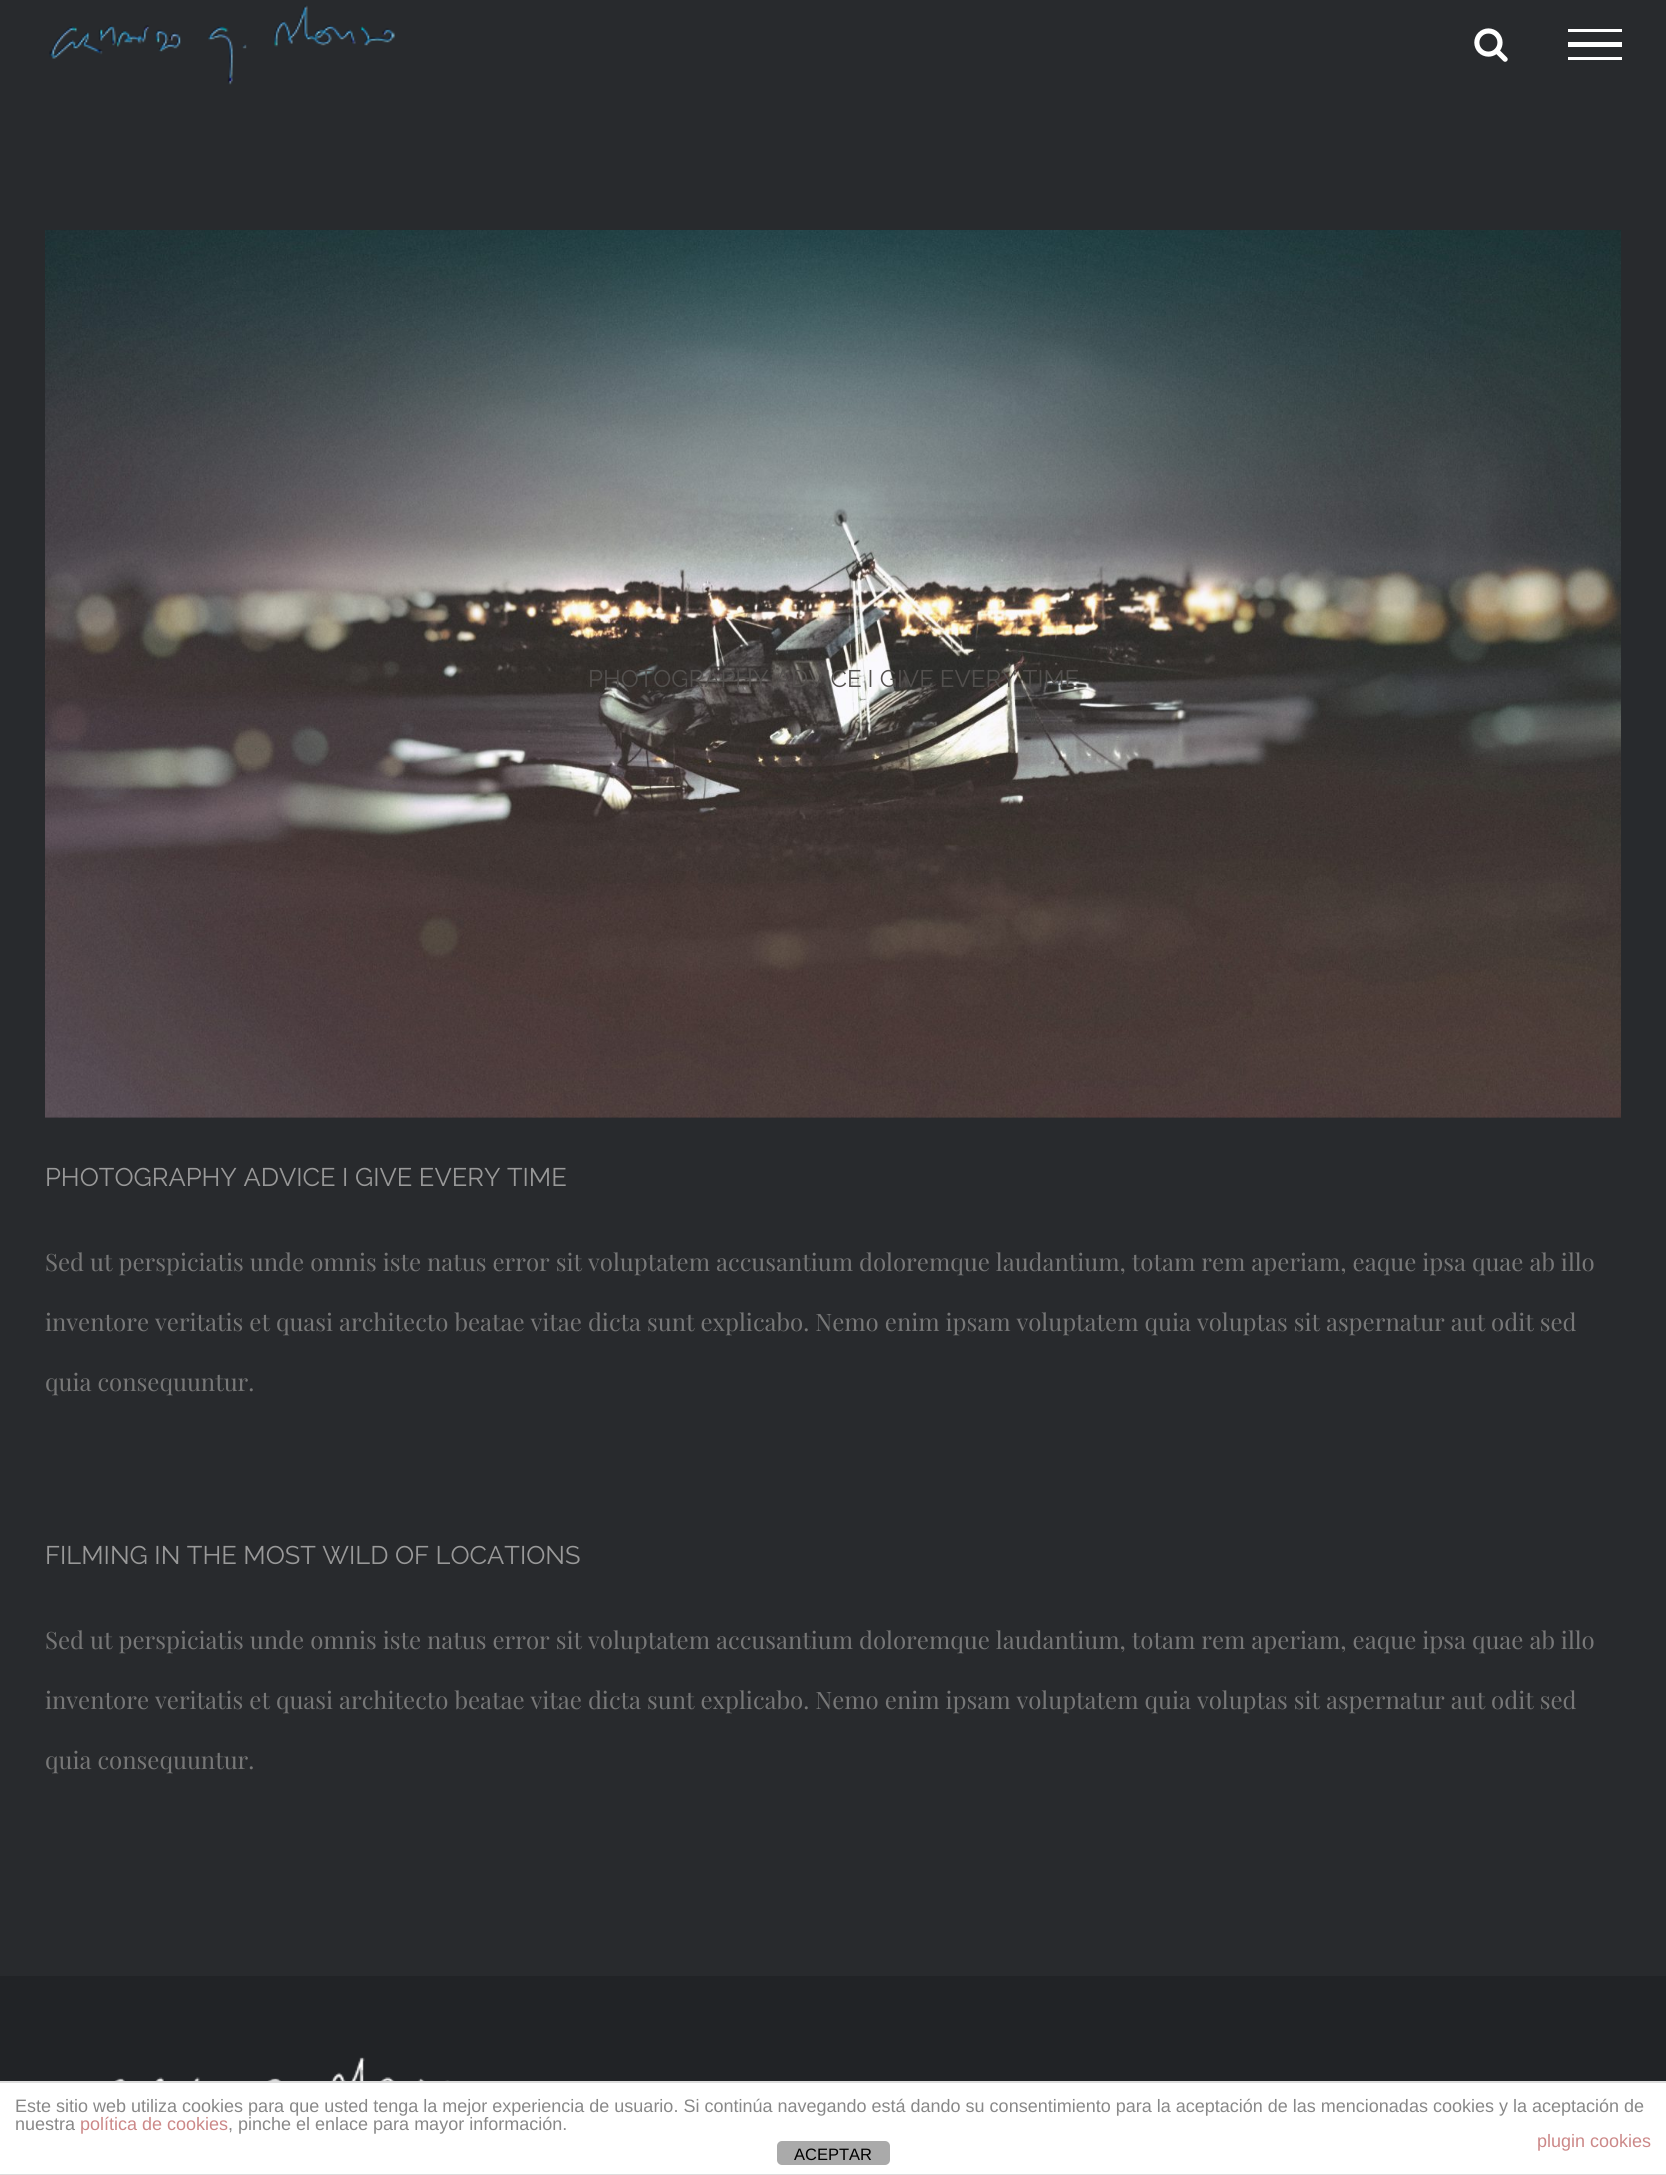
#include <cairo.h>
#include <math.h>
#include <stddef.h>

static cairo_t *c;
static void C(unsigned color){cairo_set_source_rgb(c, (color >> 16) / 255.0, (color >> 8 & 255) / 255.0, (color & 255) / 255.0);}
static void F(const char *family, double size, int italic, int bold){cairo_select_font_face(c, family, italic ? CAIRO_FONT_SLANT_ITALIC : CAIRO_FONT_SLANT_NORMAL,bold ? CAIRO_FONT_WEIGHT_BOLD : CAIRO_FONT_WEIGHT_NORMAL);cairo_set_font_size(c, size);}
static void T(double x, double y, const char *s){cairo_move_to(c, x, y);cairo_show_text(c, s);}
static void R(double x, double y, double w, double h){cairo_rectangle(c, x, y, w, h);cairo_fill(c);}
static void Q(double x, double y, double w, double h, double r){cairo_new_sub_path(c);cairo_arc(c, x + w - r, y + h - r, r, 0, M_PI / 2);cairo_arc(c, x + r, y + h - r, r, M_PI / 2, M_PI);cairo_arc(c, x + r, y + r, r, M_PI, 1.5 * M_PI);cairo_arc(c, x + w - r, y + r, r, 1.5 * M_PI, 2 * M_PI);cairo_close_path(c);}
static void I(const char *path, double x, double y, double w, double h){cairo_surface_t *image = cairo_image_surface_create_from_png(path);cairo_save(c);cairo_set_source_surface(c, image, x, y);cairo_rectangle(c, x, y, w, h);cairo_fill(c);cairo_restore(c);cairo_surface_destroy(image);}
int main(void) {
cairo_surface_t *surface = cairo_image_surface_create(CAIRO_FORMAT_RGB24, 1666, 2175);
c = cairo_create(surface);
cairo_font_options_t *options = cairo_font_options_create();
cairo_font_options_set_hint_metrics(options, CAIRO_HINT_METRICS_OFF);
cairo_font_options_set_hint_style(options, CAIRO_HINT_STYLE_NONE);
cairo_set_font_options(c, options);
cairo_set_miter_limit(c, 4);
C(0x282a2d);
cairo_paint(c);
I("1.png",49,5,346,80);
I("2.png",1474,28,34,34);
C(0xffffff);
R(1568,29,54,3);
R(1568,42,54,5);
R(1568,57,54,3);
I("3.png",45,230,1576,888);
F("Raleway",24,0,0);
C(0x53504e);
T(588,687,"PHOTOGRAPHY ADVICE I GIVE EVERY TIME");
F("Raleway",25.5,0,0);
C(0x999999);
T(45,1186,"PHOTOGRAPHY ADVICE I GIVE EVERY TIME");
F("Playfair Display",24,0,0);
C(0x777777);
T(45,1271,"Sed ut perspiciatis unde omnis iste natus error sit voluptatem accusantium doloremque laudantium, totam rem aperiam, eaque ipsa quae ab illo");
T(45,1331,"inventore veritatis et quasi architecto beatae vitae dicta sunt explicabo. Nemo enim ipsam voluptatem quia voluptas sit aspernatur aut odit sed");
T(45,1391,"quia consequuntur.");
F("Raleway",25.5,0,0);
C(0x999999);
T(45,1564,"FILMING IN THE MOST WILD OF LOCATIONS");
F("Playfair Display",24,0,0);
C(0x777777);
T(45,1649,"Sed ut perspiciatis unde omnis iste natus error sit voluptatem accusantium doloremque laudantium, totam rem aperiam, eaque ipsa quae ab illo");
T(45,1709,"inventore veritatis et quasi architecto beatae vitae dicta sunt explicabo. Nemo enim ipsam voluptatem quia voluptas sit aspernatur aut odit sed");
T(45,1769,"quia consequuntur.");
C(0x212326);
R(0,1976,1666,105);
I("4.png",114,2057,336,24);
C(0xffffff);
R(0,2083,1666,91);
C(0xdddddd);
R(0,2081,1666,2);
R(0,2174,1666,1);
F("Liberation Sans",18,0,0);
C(0x888888);
T(15,2112,"Este sitio web utiliza cookies para que usted tenga la mejor experiencia de usuario. Si continúa navegando está dando su consentimiento para la aceptación de las mencionadas cookies y la aceptación de");
T(15,2130,"nuestra");
C(0xcc8888);
T(80,2130,"política de cookies");
C(0x888888);
T(228,2130,", pinche el enlace para mayor información.");
C(0xcc8888);
T(1537,2147,"plugin cookies");
C(0xaaaaaa);
Q(777,2141,113,24,5);
cairo_fill(c);
F("Liberation Sans",16.5,0,0);
C(0x000000);
T(794,2160,"ACEPTAR");
cairo_surface_write_to_png(surface, "o.png");
cairo_font_options_destroy(options);
cairo_destroy(c);
cairo_surface_destroy(surface);
return 0;
}
